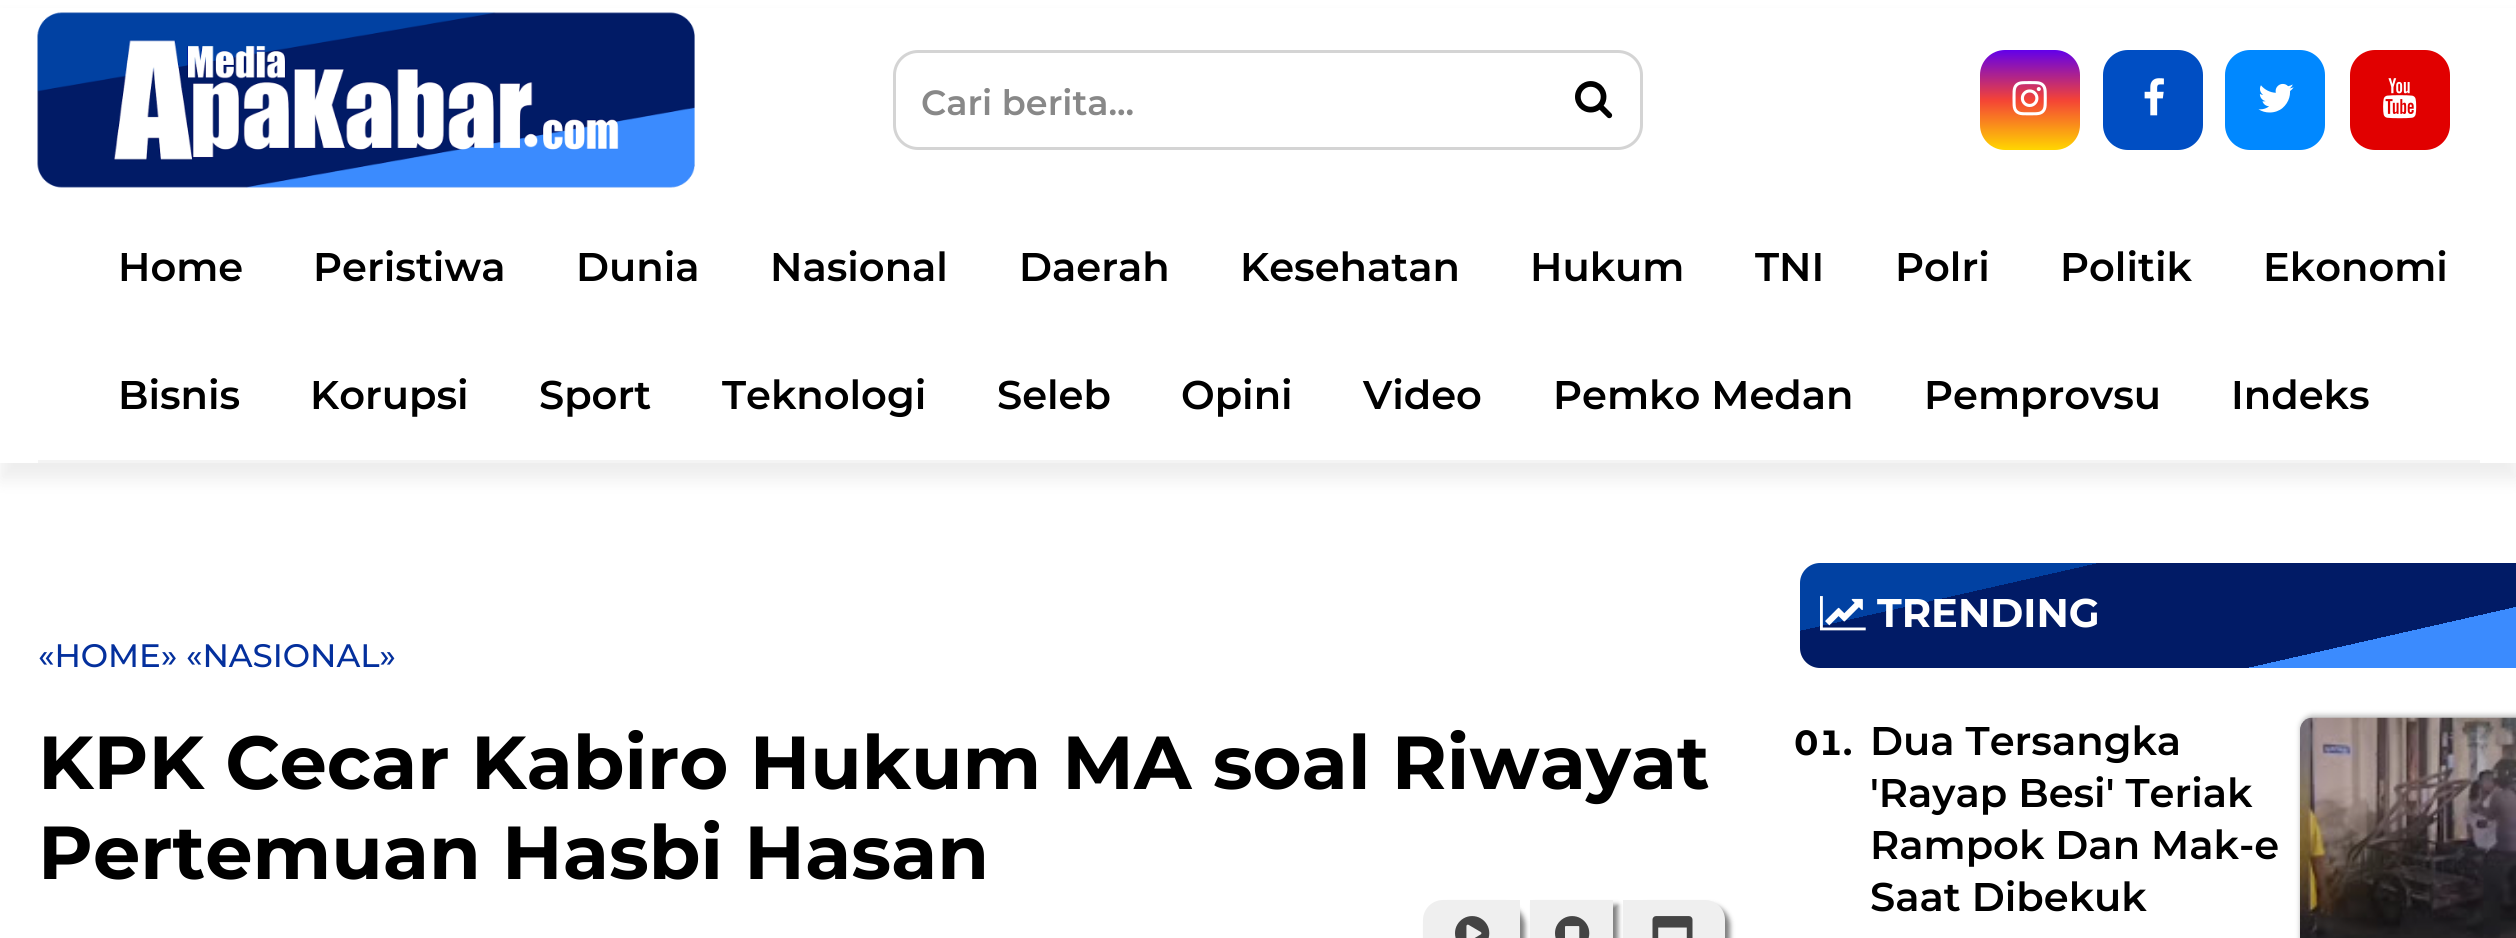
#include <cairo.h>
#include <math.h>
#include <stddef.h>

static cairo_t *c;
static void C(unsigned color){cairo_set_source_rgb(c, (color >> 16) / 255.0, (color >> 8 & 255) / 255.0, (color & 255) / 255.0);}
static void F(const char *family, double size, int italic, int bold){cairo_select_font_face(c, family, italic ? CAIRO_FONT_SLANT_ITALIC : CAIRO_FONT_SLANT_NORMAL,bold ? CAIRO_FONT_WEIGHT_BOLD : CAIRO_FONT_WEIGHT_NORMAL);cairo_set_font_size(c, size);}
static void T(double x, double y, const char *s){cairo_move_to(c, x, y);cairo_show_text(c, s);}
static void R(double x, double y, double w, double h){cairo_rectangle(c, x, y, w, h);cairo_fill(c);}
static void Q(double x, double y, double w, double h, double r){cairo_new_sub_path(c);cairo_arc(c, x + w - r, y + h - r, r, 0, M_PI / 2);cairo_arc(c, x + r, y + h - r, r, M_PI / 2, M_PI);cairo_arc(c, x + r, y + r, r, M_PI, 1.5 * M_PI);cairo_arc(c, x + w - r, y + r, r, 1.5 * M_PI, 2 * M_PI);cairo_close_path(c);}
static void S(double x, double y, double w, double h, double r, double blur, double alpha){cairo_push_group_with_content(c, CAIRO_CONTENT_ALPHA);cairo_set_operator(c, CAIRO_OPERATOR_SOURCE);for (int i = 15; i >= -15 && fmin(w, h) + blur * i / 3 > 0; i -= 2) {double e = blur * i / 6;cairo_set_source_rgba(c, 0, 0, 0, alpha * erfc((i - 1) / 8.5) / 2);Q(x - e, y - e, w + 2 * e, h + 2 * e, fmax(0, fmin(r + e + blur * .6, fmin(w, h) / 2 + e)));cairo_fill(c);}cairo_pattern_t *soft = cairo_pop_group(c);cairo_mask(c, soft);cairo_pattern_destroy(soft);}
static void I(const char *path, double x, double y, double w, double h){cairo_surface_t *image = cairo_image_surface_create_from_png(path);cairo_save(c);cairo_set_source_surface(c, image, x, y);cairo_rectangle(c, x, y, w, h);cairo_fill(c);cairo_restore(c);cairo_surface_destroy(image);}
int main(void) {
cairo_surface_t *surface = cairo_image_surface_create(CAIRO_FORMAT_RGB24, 2516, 938);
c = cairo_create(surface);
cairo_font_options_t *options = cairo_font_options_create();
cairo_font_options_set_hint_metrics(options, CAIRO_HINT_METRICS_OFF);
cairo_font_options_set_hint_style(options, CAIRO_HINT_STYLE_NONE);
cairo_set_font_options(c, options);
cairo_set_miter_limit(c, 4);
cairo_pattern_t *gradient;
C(0xffffff);
cairo_paint(c);
C(0x000000);
S(0,18,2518,462,0,9,.07);
C(0xffffff);
R(0,8,2516,455);
I("1.png",37,12,658,176);
Q(894.5,51.5,747,97,23.5);
C(0xd4d4d4);
cairo_set_line_width(c,3);
cairo_stroke(c);
F("Montserrat SemiBold",35,0,0);
C(0x888888);
T(921,115,"Cari berita...");
I("2.png",1575,81,38,38);
gradient = cairo_pattern_create_linear(2030,50,2030,150);
cairo_pattern_add_color_stop_rgba(gradient,0,0.384,0,0.918,1);
cairo_pattern_add_color_stop_rgba(gradient,.5,0.957,0.263,0.212,1);
cairo_pattern_add_color_stop_rgba(gradient,1,1,0.839,0,1);
cairo_set_source(c,gradient);
cairo_pattern_destroy(gradient);
Q(1980,50,100,100,25);
cairo_fill(c);
I("3.png",2012,81,35,35);
C(0x004ec3);
Q(2103,50,100,100,25);
cairo_fill(c);
I("4.png",2144,78,20,38);
C(0x0088ff);
Q(2225,50,100,100,25);
cairo_fill(c);
I("5.png",2258,83,36,30);
C(0xe10000);
Q(2350,50,100,100,25);
cairo_fill(c);
I("6.png",2383,78,34,41);
C(0xf4f4f4);
R(38,460,2442,3);
F("Montserrat SemiBold",40,0,0);
C(0x000000);
T(118,281,"Home");
T(313,281,"Peristiwa");
T(576,281,"Dunia");
T(770,281,"Nasional");
T(1019,281,"Daerah");
T(1240,281,"Kesehatan");
T(1530,281,"Hukum");
T(1755,281,"TNI");
T(1895,281,"Polri");
T(2060,281,"Politik");
T(2263,281,"Ekonomi");
T(118,409,"Bisnis");
T(310,409,"Korupsi");
T(539,409,"Sport");
T(722,409,"Teknologi");
T(997,409,"Seleb");
T(1181,409,"Opini");
T(1363,409,"Video");
T(1553,409,"Pemko Medan");
T(1924,409,"Pemprovsu");
T(2231,409,"Indeks");
F("Montserrat Medium",32.5,0,0);
C(0x04309d);
T(38,667,"«HOME» «NASIONAL»");
F("Montserrat",75,0,1);
C(0x000000);
T(38,789,"KPK Cecar Kabiro Hukum MA soal Riwayat");
T(38,879,"Pertemuan Hasbi Hasan");
C(0x000000);
S(1428,905,97,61,20,2.5,.5);
C(0xefefef);
cairo_new_path(c);
cairo_move_to(c,1443,900);
cairo_line_to(c,1520,900);
cairo_line_to(c,1520,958);
cairo_line_to(c,1443,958);
cairo_curve_to(c,1432,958,1423,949,1423,938);
cairo_line_to(c,1423,920);
cairo_curve_to(c,1423,909,1432,900,1443,900);
cairo_close_path(c);
cairo_fill(c);
I("7.png",1455,916,35,22);
C(0x000000);
S(1535,905,83,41,0,2.5,.5);
C(0xefefef);
R(1530,900,83,38);
I("8.png",1555,916,35,22);
C(0x000000);
S(1628,905,102,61,20,2.5,.5);
C(0xefefef);
cairo_new_path(c);
cairo_move_to(c,1623,900);
cairo_line_to(c,1705,900);
cairo_curve_to(c,1716,900,1725,909,1725,920);
cairo_line_to(c,1725,938);
cairo_curve_to(c,1725,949,1716,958,1705,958);
cairo_line_to(c,1623,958);
cairo_close_path(c);
cairo_fill(c);
I("9.png",1652,916,41,22);
gradient = cairo_pattern_create_linear(2145,483,2205,747);
cairo_pattern_add_color_stop_rgba(gradient,0,0.004,0.255,0.635,1);
cairo_pattern_add_color_stop_rgba(gradient,.25,0.004,0.255,0.635,1);
cairo_pattern_add_color_stop_rgba(gradient,.25,0.004,0.106,0.4,1);
cairo_pattern_add_color_stop_rgba(gradient,.75,0.004,0.106,0.4,1);
cairo_pattern_add_color_stop_rgba(gradient,.75,0.231,0.545,0.996,1);
cairo_pattern_add_color_stop_rgba(gradient,1,0.231,0.545,0.996,1);
cairo_set_source(c,gradient);
cairo_pattern_destroy(gradient);
cairo_new_path(c);
cairo_move_to(c,1820,563);
cairo_line_to(c,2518,563);
cairo_line_to(c,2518,668);
cairo_line_to(c,1820,668);
cairo_curve_to(c,1809,668,1800,659,1800,648);
cairo_line_to(c,1800,583);
cairo_curve_to(c,1800,572,1809,563,1820,563);
cairo_close_path(c);
cairo_fill(c);
I("10.png",1820,596,46,35);
F("Montserrat",40,0,1);
C(0xffffff);
T(1877,627,"TRENDING");
F("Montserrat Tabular",35,0,1);
C(0x000000);
T(1794,755,"01.");
F("Montserrat SemiBold",40,0,0);
T(1870,755,"Dua Tersangka");
T(1870,807,"'Rayap Besi' Teriak");
T(1870,859,"Rampok Dan Mak-e");
T(1870,911,"Saat Dibekuk");
C(0xc0c0c0);
S(2300,715,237,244,13,2.5,1);
I("11.png",2300,717,216,221);
cairo_surface_write_to_png(surface, "o.png");
cairo_font_options_destroy(options);
cairo_destroy(c);
cairo_surface_destroy(surface);
return 0;
}
